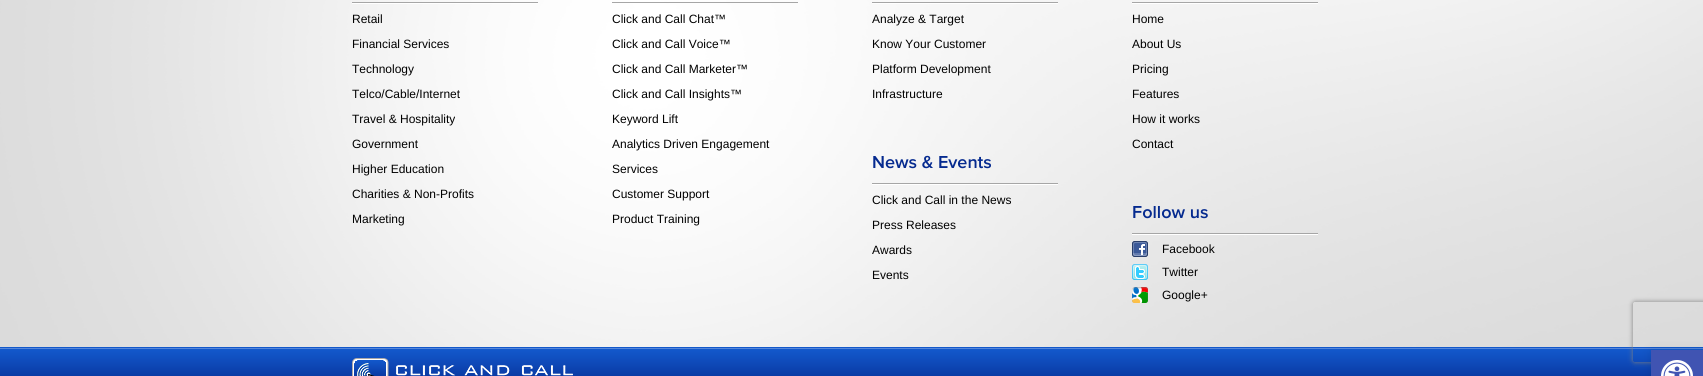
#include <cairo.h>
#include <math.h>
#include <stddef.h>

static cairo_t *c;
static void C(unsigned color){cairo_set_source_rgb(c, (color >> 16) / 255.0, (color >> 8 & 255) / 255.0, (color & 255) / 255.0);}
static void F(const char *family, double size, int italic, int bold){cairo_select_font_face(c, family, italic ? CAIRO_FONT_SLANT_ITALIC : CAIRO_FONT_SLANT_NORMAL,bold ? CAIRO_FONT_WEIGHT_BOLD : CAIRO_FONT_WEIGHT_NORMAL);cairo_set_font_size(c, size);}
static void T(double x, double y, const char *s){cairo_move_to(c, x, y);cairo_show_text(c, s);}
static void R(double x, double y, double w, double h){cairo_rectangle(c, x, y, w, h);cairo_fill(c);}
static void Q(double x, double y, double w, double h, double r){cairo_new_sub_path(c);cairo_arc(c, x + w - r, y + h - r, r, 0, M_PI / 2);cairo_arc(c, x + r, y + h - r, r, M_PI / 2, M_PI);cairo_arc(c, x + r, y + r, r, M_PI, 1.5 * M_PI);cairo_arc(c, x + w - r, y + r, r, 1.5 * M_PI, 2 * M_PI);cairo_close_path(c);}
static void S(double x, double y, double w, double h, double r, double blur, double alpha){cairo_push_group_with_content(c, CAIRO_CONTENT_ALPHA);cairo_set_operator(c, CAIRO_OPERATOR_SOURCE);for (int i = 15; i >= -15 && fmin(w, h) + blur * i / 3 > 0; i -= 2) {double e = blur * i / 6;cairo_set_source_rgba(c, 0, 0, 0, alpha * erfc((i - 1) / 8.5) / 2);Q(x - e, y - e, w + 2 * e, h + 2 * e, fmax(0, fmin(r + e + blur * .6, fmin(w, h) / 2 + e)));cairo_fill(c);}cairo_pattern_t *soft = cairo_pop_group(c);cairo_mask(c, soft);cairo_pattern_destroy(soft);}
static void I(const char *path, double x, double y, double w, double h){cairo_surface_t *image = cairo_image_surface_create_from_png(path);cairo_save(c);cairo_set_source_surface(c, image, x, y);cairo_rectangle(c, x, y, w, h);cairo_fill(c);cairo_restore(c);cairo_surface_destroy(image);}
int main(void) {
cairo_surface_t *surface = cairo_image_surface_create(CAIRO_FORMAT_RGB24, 1703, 376);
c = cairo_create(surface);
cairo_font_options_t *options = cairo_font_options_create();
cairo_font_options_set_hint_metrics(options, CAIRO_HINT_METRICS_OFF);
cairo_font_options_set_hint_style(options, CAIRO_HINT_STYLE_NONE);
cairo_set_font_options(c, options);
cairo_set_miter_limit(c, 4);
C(0xffffff);
cairo_paint(c);
I("1.png",0,0,1703,347);
I("2.png",352,2,186,2);
F("Liberation Sans",12,0,0);
C(0x000000);
T(352,23,"Retail");
T(352,48,"Financial Services");
T(352,73,"Technology");
T(352,98,"Telco/Cable/Internet");
T(352,123,"Travel & Hospitality");
T(352,148,"Government");
T(352,173,"Higher Education");
T(352,198,"Charities & Non-Profits");
T(352,223,"Marketing");
C(0xa6a6a6);
R(612,2,186,1);
C(0x000000);
T(612,23,"Click and Call Chat™");
T(612,48,"Click and Call Voice™");
T(612,73,"Click and Call Marketer™");
T(612,98,"Click and Call Insights™");
T(612,123,"Keyword Lift");
T(612,148,"Analytics Driven Engagement");
T(612,173,"Services");
T(612,198,"Customer Support");
T(612,223,"Product Training");
I("2.png",872,2,186,2);
T(872,23,"Analyze & Target");
T(872,48,"Know Your Customer");
T(872,73,"Platform Development");
T(872,98,"Infrastructure");
I("2.png",872,183,186,2);
F("Proxima Nova SemiBold",18,0,0);
C(0x052a8f);
T(872,168,"News & Events");
F("Liberation Sans",12,0,0);
C(0x000000);
T(872,204,"Click and Call in the News");
T(872,229,"Press Releases");
T(872,254,"Awards");
T(872,279,"Events");
I("2.png",1132,2,186,2);
T(1132,23,"Home");
T(1132,48,"About Us");
T(1132,73,"Pricing");
T(1132,98,"Features");
T(1132,123,"How it works");
T(1132,148,"Contact");
I("2.png",1132,233,186,2);
F("Proxima Nova SemiBold",18,0,0);
C(0x052a8f);
T(1132,218,"Follow us");
I("3.png",1132,241,16,16);
F("Liberation Sans",12,0,0);
C(0x000000);
T(1162,253,"Facebook");
I("4.png",1132,264,16,16);
T(1162,276,"Twitter");
I("5.png",1132,287,16,16);
T(1162,299,"Google+");
I("6.png",0,347,1703,29);
I("7.png",352,358,221,18);
cairo_save(c);
cairo_set_fill_rule(c,CAIRO_FILL_RULE_EVEN_ODD);
cairo_new_path(c);
cairo_move_to(c,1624,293);
cairo_line_to(c,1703,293);
cairo_line_to(c,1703,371);
cairo_line_to(c,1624,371);
cairo_close_path(c);
cairo_move_to(c,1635,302);
cairo_line_to(c,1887,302);
cairo_curve_to(c,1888,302,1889,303,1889,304);
cairo_line_to(c,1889,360);
cairo_curve_to(c,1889,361,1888,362,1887,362);
cairo_line_to(c,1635,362);
cairo_curve_to(c,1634,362,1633,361,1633,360);
cairo_line_to(c,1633,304);
cairo_curve_to(c,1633,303,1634,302,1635,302);
cairo_close_path(c);
cairo_clip(c);
C(0x808080);
S(1633,302,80,60,2,2.5,1);
cairo_restore(c);
C(0x000000);
S(1651,350,52,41,0,5,.1);
C(0x4054b2);
R(1651,350,52,26);
I("8.png",1661,360,32,16);
cairo_surface_write_to_png(surface, "o.png");
cairo_font_options_destroy(options);
cairo_destroy(c);
cairo_surface_destroy(surface);
return 0;
}
